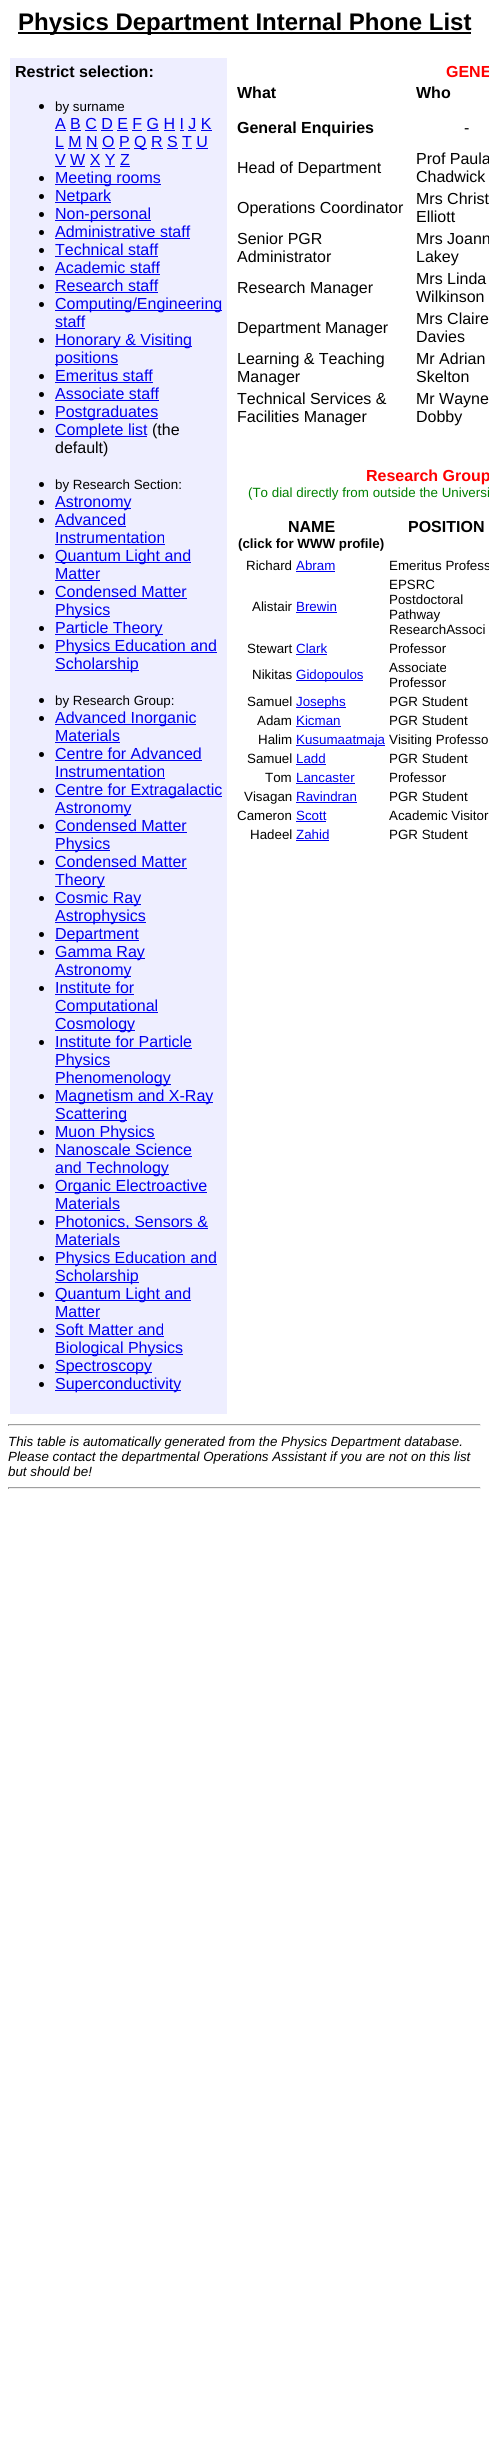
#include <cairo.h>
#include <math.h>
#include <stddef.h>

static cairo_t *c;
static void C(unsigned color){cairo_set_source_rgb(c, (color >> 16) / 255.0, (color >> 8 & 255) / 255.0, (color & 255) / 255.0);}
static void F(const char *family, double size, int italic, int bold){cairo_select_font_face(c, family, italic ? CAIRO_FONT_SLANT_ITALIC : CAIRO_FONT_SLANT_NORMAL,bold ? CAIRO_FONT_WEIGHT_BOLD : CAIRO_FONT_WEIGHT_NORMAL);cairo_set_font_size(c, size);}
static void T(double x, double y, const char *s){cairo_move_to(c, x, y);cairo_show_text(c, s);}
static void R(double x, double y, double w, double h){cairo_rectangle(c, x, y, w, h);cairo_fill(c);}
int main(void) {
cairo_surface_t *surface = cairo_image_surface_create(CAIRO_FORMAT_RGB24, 489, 2460);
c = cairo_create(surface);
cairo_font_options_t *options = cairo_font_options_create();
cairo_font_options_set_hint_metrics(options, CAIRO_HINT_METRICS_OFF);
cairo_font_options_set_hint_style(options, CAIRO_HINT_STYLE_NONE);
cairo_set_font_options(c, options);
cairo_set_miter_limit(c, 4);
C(0xffffff);
cairo_paint(c);
C(0x000000);
R(18,32,453,2);
F("Liberation Sans",24,0,1);
T(18,30,"Physics Department Internal Phone List");
C(0xeeeeff);
R(10,58,217,1356);
F("Liberation Sans",16,0,1);
C(0x000000);
T(15,77,"Restrict selection:");
cairo_new_path(c);
cairo_arc(c,41.5,106.5,2.5,0,2 * M_PI);
cairo_fill(c);
F("Liberation Sans",13.35,0,0);
T(55,111,"by surname");
F("Liberation Sans",16,0,0);
C(0x0000ee);
T(55,129,"A B C D E F G H I J K");
R(55,130,11,1);
R(70,130,11,1);
R(85,130,12,1);
R(101,130,12,1);
R(117,130,11,1);
R(132,130,10,1);
R(147,130,12,1);
R(164,130,11,1);
R(180,130,4,1);
R(188,130,8,1);
R(201,130,11,1);
T(55,147,"L M N O P");
R(55,148,9,1);
R(134,148,13,1);
T(134,147,"Q R S T U");
R(68,148,14,1);
R(86,148,12,1);
R(102,148,13,1);
R(119,148,11,1);
R(151,148,12,1);
R(167,148,11,1);
R(182,148,10,1);
R(196,148,12,1);
T(55,165,"V W X Y Z");
R(55,166,11,1);
R(70,166,15,1);
R(90,166,10,1);
R(105,166,10,1);
R(120,166,10,1);
C(0x000000);
cairo_new_path(c);
cairo_arc(c,41.5,178.5,2.5,0,2 * M_PI);
cairo_fill(c);
C(0x0000ee);
R(55,184,106,1);
T(55,183,"Meeting rooms");
C(0x000000);
cairo_new_path(c);
cairo_arc(c,41.5,196.5,2.5,0,2 * M_PI);
cairo_fill(c);
C(0x0000ee);
R(55,202,56,1);
T(55,201,"Netpark");
C(0x000000);
cairo_new_path(c);
cairo_arc(c,41.5,214.5,2.5,0,2 * M_PI);
cairo_fill(c);
C(0x0000ee);
R(55,220,96,1);
T(55,219,"Non-personal");
C(0x000000);
cairo_new_path(c);
cairo_arc(c,41.5,232.5,2.5,0,2 * M_PI);
cairo_fill(c);
C(0x0000ee);
T(55,237,"Administrative staff");
R(55,238,135,1);
C(0x000000);
cairo_new_path(c);
cairo_arc(c,41.5,250.5,2.5,0,2 * M_PI);
cairo_fill(c);
C(0x0000ee);
T(55,255,"Technical staff");
R(55,256,103,1);
C(0x000000);
cairo_new_path(c);
cairo_arc(c,41.5,268.5,2.5,0,2 * M_PI);
cairo_fill(c);
C(0x0000ee);
T(55,273,"Academic staff");
R(55,274,105,1);
C(0x000000);
cairo_new_path(c);
cairo_arc(c,41.5,286.5,2.5,0,2 * M_PI);
cairo_fill(c);
C(0x0000ee);
T(55,291,"Research staff");
R(55,292,103,1);
C(0x000000);
cairo_new_path(c);
cairo_arc(c,41.5,304.5,2.5,0,2 * M_PI);
cairo_fill(c);
C(0x0000ee);
R(55,310,167,1);
T(55,309,"Computing/Engineering");
T(55,327,"staff");
R(55,328,30,1);
C(0x000000);
cairo_new_path(c);
cairo_arc(c,41.5,340.5,2.5,0,2 * M_PI);
cairo_fill(c);
C(0x0000ee);
R(55,346,137,1);
T(55,345,"Honorary & Visiting");
R(55,364,63,1);
T(55,363,"positions");
C(0x000000);
cairo_new_path(c);
cairo_arc(c,41.5,376.5,2.5,0,2 * M_PI);
cairo_fill(c);
C(0x0000ee);
T(55,381,"Emeritus staff");
R(55,382,98,1);
C(0x000000);
cairo_new_path(c);
cairo_arc(c,41.5,394.5,2.5,0,2 * M_PI);
cairo_fill(c);
C(0x0000ee);
T(55,399,"Associate staff");
R(55,400,104,1);
C(0x000000);
cairo_new_path(c);
cairo_arc(c,41.5,412.5,2.5,0,2 * M_PI);
cairo_fill(c);
C(0x0000ee);
R(55,418,103,1);
T(55,417,"Postgraduates");
C(0x000000);
cairo_new_path(c);
cairo_arc(c,41.5,430.5,2.5,0,2 * M_PI);
cairo_fill(c);
C(0x0000ee);
R(55,436,92,1);
T(55,435,"Complete list");
C(0x000000);
T(152,435,"(the");
T(55,453,"default)");
cairo_new_path(c);
cairo_arc(c,41.5,484.5,2.5,0,2 * M_PI);
cairo_fill(c);
F("Liberation Sans",13.35,0,0);
T(55,489,"by Research Section:");
cairo_new_path(c);
cairo_arc(c,41.5,502.5,2.5,0,2 * M_PI);
cairo_fill(c);
C(0x0000ee);
R(55,508,76,1);
F("Liberation Sans",16,0,0);
T(55,507,"Astronomy");
C(0x000000);
cairo_new_path(c);
cairo_arc(c,41.5,520.5,2.5,0,2 * M_PI);
cairo_fill(c);
C(0x0000ee);
T(55,525,"Advanced");
R(55,526,71,1);
T(55,543,"Instrumentation");
R(55,544,110,1);
C(0x000000);
cairo_new_path(c);
cairo_arc(c,41.5,556.5,2.5,0,2 * M_PI);
cairo_fill(c);
C(0x0000ee);
R(55,562,136,1);
T(55,561,"Quantum Light and");
T(55,579,"Matter");
R(55,580,45,1);
C(0x000000);
cairo_new_path(c);
cairo_arc(c,41.5,592.5,2.5,0,2 * M_PI);
cairo_fill(c);
C(0x0000ee);
T(55,597,"Condensed Matter");
R(55,598,132,1);
R(55,616,55,1);
T(55,615,"Physics");
C(0x000000);
cairo_new_path(c);
cairo_arc(c,41.5,628.5,2.5,0,2 * M_PI);
cairo_fill(c);
C(0x0000ee);
R(55,634,108,1);
T(55,633,"Particle Theory");
C(0x000000);
cairo_new_path(c);
cairo_arc(c,41.5,646.5,2.5,0,2 * M_PI);
cairo_fill(c);
C(0x0000ee);
R(55,652,162,1);
T(55,651,"Physics Education and");
R(55,670,84,1);
T(55,669,"Scholarship");
C(0x000000);
cairo_new_path(c);
cairo_arc(c,41.5,700.5,2.5,0,2 * M_PI);
cairo_fill(c);
F("Liberation Sans",13.35,0,0);
T(55,705,"by Research Group:");
cairo_new_path(c);
cairo_arc(c,41.5,718.5,2.5,0,2 * M_PI);
cairo_fill(c);
C(0x0000ee);
R(55,724,141,1);
F("Liberation Sans",16,0,0);
T(55,723,"Advanced Inorganic");
T(55,741,"Materials");
R(55,742,65,1);
C(0x000000);
cairo_new_path(c);
cairo_arc(c,41.5,754.5,2.5,0,2 * M_PI);
cairo_fill(c);
C(0x0000ee);
T(55,759,"Centre for Advanced");
R(55,760,147,1);
T(55,777,"Instrumentation");
R(55,778,110,1);
C(0x000000);
cairo_new_path(c);
cairo_arc(c,41.5,790.5,2.5,0,2 * M_PI);
cairo_fill(c);
C(0x0000ee);
R(55,796,167,1);
T(55,795,"Centre for Extragalactic");
R(55,814,76,1);
T(55,813,"Astronomy");
C(0x000000);
cairo_new_path(c);
cairo_arc(c,41.5,826.5,2.5,0,2 * M_PI);
cairo_fill(c);
C(0x0000ee);
T(55,831,"Condensed Matter");
R(55,832,132,1);
R(55,850,55,1);
T(55,849,"Physics");
C(0x000000);
cairo_new_path(c);
cairo_arc(c,41.5,862.5,2.5,0,2 * M_PI);
cairo_fill(c);
C(0x0000ee);
T(55,867,"Condensed Matter");
R(55,868,132,1);
R(55,886,50,1);
T(55,885,"Theory");
C(0x000000);
cairo_new_path(c);
cairo_arc(c,41.5,898.5,2.5,0,2 * M_PI);
cairo_fill(c);
C(0x0000ee);
R(55,904,86,1);
T(55,903,"Cosmic Ray");
R(55,922,91,1);
T(55,921,"Astrophysics");
C(0x000000);
cairo_new_path(c);
cairo_arc(c,41.5,934.5,2.5,0,2 * M_PI);
cairo_fill(c);
C(0x0000ee);
R(55,940,84,1);
T(55,939,"Department");
C(0x000000);
cairo_new_path(c);
cairo_arc(c,41.5,952.5,2.5,0,2 * M_PI);
cairo_fill(c);
C(0x0000ee);
R(55,958,90,1);
T(55,957,"Gamma Ray");
R(55,976,76,1);
T(55,975,"Astronomy");
C(0x000000);
cairo_new_path(c);
cairo_arc(c,41.5,988.5,2.5,0,2 * M_PI);
cairo_fill(c);
C(0x0000ee);
T(55,993,"Institute for");
R(55,994,79,1);
R(55,1012,103,1);
T(55,1011,"Computational");
R(55,1030,80,1);
T(55,1029,"Cosmology");
C(0x000000);
cairo_new_path(c);
cairo_arc(c,41.5,1042.5,2.5,0,2 * M_PI);
cairo_fill(c);
C(0x0000ee);
T(55,1047,"Institute for Particle");
R(55,1048,137,1);
R(55,1066,55,1);
T(55,1065,"Physics");
R(55,1084,116,1);
T(55,1083,"Phenomenology");
C(0x000000);
cairo_new_path(c);
cairo_arc(c,41.5,1096.5,2.5,0,2 * M_PI);
cairo_fill(c);
C(0x0000ee);
R(55,1102,158,1);
T(55,1101,"Magnetism and X-Ray");
R(55,1120,72,1);
T(55,1119,"Scattering");
C(0x000000);
cairo_new_path(c);
cairo_arc(c,41.5,1132.5,2.5,0,2 * M_PI);
cairo_fill(c);
C(0x0000ee);
R(55,1138,100,1);
T(55,1137,"Muon Physics");
C(0x000000);
cairo_new_path(c);
cairo_arc(c,41.5,1150.5,2.5,0,2 * M_PI);
cairo_fill(c);
C(0x0000ee);
T(55,1155,"Nanoscale Science");
R(55,1156,137,1);
R(55,1174,114,1);
T(55,1173,"and Technology");
C(0x000000);
cairo_new_path(c);
cairo_arc(c,41.5,1186.5,2.5,0,2 * M_PI);
cairo_fill(c);
C(0x0000ee);
R(55,1192,152,1);
T(55,1191,"Organic Electroactive");
T(55,1209,"Materials");
R(55,1210,65,1);
C(0x000000);
cairo_new_path(c);
cairo_arc(c,41.5,1222.5,2.5,0,2 * M_PI);
cairo_fill(c);
C(0x0000ee);
R(55,1228,153,1);
T(55,1227,"Photonics, Sensors &");
T(55,1245,"Materials");
R(55,1246,65,1);
C(0x000000);
cairo_new_path(c);
cairo_arc(c,41.5,1258.5,2.5,0,2 * M_PI);
cairo_fill(c);
C(0x0000ee);
R(55,1264,162,1);
T(55,1263,"Physics Education and");
R(55,1282,84,1);
T(55,1281,"Scholarship");
C(0x000000);
cairo_new_path(c);
cairo_arc(c,41.5,1294.5,2.5,0,2 * M_PI);
cairo_fill(c);
C(0x0000ee);
R(55,1300,136,1);
T(55,1299,"Quantum Light and");
T(55,1317,"Matter");
R(55,1318,45,1);
C(0x000000);
cairo_new_path(c);
cairo_arc(c,41.5,1330.5,2.5,0,2 * M_PI);
cairo_fill(c);
C(0x0000ee);
T(55,1335,"Soft Matter and");
R(55,1336,109,1);
R(55,1354,128,1);
T(55,1353,"Biological Physics");
C(0x000000);
cairo_new_path(c);
cairo_arc(c,41.5,1366.5,2.5,0,2 * M_PI);
cairo_fill(c);
C(0x0000ee);
R(55,1372,97,1);
T(55,1371,"Spectroscopy");
C(0x000000);
cairo_new_path(c);
cairo_arc(c,41.5,1384.5,2.5,0,2 * M_PI);
cairo_fill(c);
C(0x0000ee);
R(55,1390,126,1);
T(55,1389,"Superconductivity");
F("Liberation Sans",16,0,1);
C(0xff0000);
T(446,77,"GENE");
C(0x000000);
T(237,98,"What");
T(416,98,"Who");
T(237,133,"General Enquiries");
F("Liberation Sans",16,0,0);
T(464,133,"-");
T(237,173,"Head of Department");
T(416,164,"Prof Paula");
T(416,182,"Chadwick");
T(237,213,"Operations Coordinator");
T(416,204,"Mrs Christ");
T(416,222,"Elliott");
T(237,244,"Senior PGR");
T(237,262,"Administrator");
T(416,244,"Mrs Joann");
T(416,262,"Lakey");
T(237,293,"Research Manager");
T(416,284,"Mrs Linda");
T(416,302,"Wilkinson");
T(237,333,"Department Manager");
T(416,324,"Mrs Claire");
T(416,342,"Davies");
T(237,364,"Learning & Teaching");
T(237,382,"Manager");
T(416,364,"Mr Adrian");
T(416,382,"Skelton");
T(237,404,"Technical Services &");
T(237,422,"Facilities Manager");
T(416,404,"Mr Wayne");
T(416,422,"Dobby");
F("Liberation Sans",16,0,1);
C(0xff0000);
T(366,481,"Research Group");
F("Liberation Sans",13.35,0,0);
C(0x008000);
T(248,497,"(To dial directly from outside the Universi");
F("Liberation Sans",16,0,1);
C(0x000000);
T(288,532,"NAME");
F("Liberation Sans",13.35,0,1);
T(238,548,"(click for WWW profile)");
F("Liberation Sans",16,0,1);
T(408,532,"POSITION");
F("Liberation Sans",13.35,0,0);
T(246,570,"Richard");
C(0x0000ee);
T(296,570,"Abram");
R(296,571,39,1);
C(0x000000);
T(389,570,"Emeritus Profess");
T(252,611,"Alistair");
C(0x0000ee);
T(296,611,"Brewin");
R(296,612,41,1);
C(0x000000);
T(389,589,"EPSRC");
T(389,604,"Postdoctoral");
T(389,619,"Pathway");
T(389,634,"ResearchAssoci");
T(247,653,"Stewart");
C(0x0000ee);
T(296,653,"Clark");
R(296,654,31,1);
C(0x000000);
T(389,653,"Professor");
T(252,679,"Nikitas");
C(0x0000ee);
R(296,680,67,1);
T(296,679,"Gidopoulos");
C(0x000000);
T(389,672,"Associate");
T(389,687,"Professor");
T(247,706,"Samuel");
C(0x0000ee);
R(296,707,50,1);
T(296,706,"Josephs");
C(0x000000);
T(389,706,"PGR Student");
T(257,725,"Adam");
C(0x0000ee);
T(296,725,"Kicman");
R(296,726,45,1);
C(0x000000);
T(389,725,"PGR Student");
T(258,744,"Halim");
C(0x0000ee);
R(296,745,89,1);
T(296,744,"Kusumaatmaja");
C(0x000000);
T(389,744,"Visiting Professo");
T(247,763,"Samuel");
C(0x0000ee);
T(296,763,"Ladd");
R(296,764,30,1);
C(0x000000);
T(389,763,"PGR Student");
T(265,782,"Tom");
C(0x0000ee);
T(296,782,"Lancaster");
R(296,783,59,1);
C(0x000000);
T(389,782,"Professor");
T(244,801,"Visagan");
C(0x0000ee);
T(296,801,"Ravindran");
R(296,802,61,1);
C(0x000000);
T(389,801,"PGR Student");
T(237,820,"Cameron");
C(0x0000ee);
T(296,820,"Scott");
R(296,821,30,1);
C(0x000000);
T(389,820,"Academic Visitor");
T(250,839,"Hadeel");
C(0x0000ee);
T(296,839,"Zahid");
R(296,840,33,1);
C(0x000000);
T(389,839,"PGR Student");
C(0x9f9f9f);
R(8,1424,473,1);
C(0xeeeeee);
R(480,1424,1,2);
R(8,1425,473,1);
C(0x9f9f9f);
R(8,1424,1,2);
F("Liberation Sans",13.35,1,0);
C(0x000000);
T(8,1446,"This table is automatically generated from the Physics Department database.");
T(8,1461,"Please contact the departmental Operations Assistant if you are not on this list");
T(8,1476,"but should be!");
C(0x9f9f9f);
R(8,1487,473,1);
C(0xeeeeee);
R(480,1487,1,2);
R(8,1488,473,1);
C(0x9f9f9f);
R(8,1487,1,2);
cairo_surface_write_to_png(surface, "o.png");
cairo_font_options_destroy(options);
cairo_destroy(c);
cairo_surface_destroy(surface);
return 0;
}
